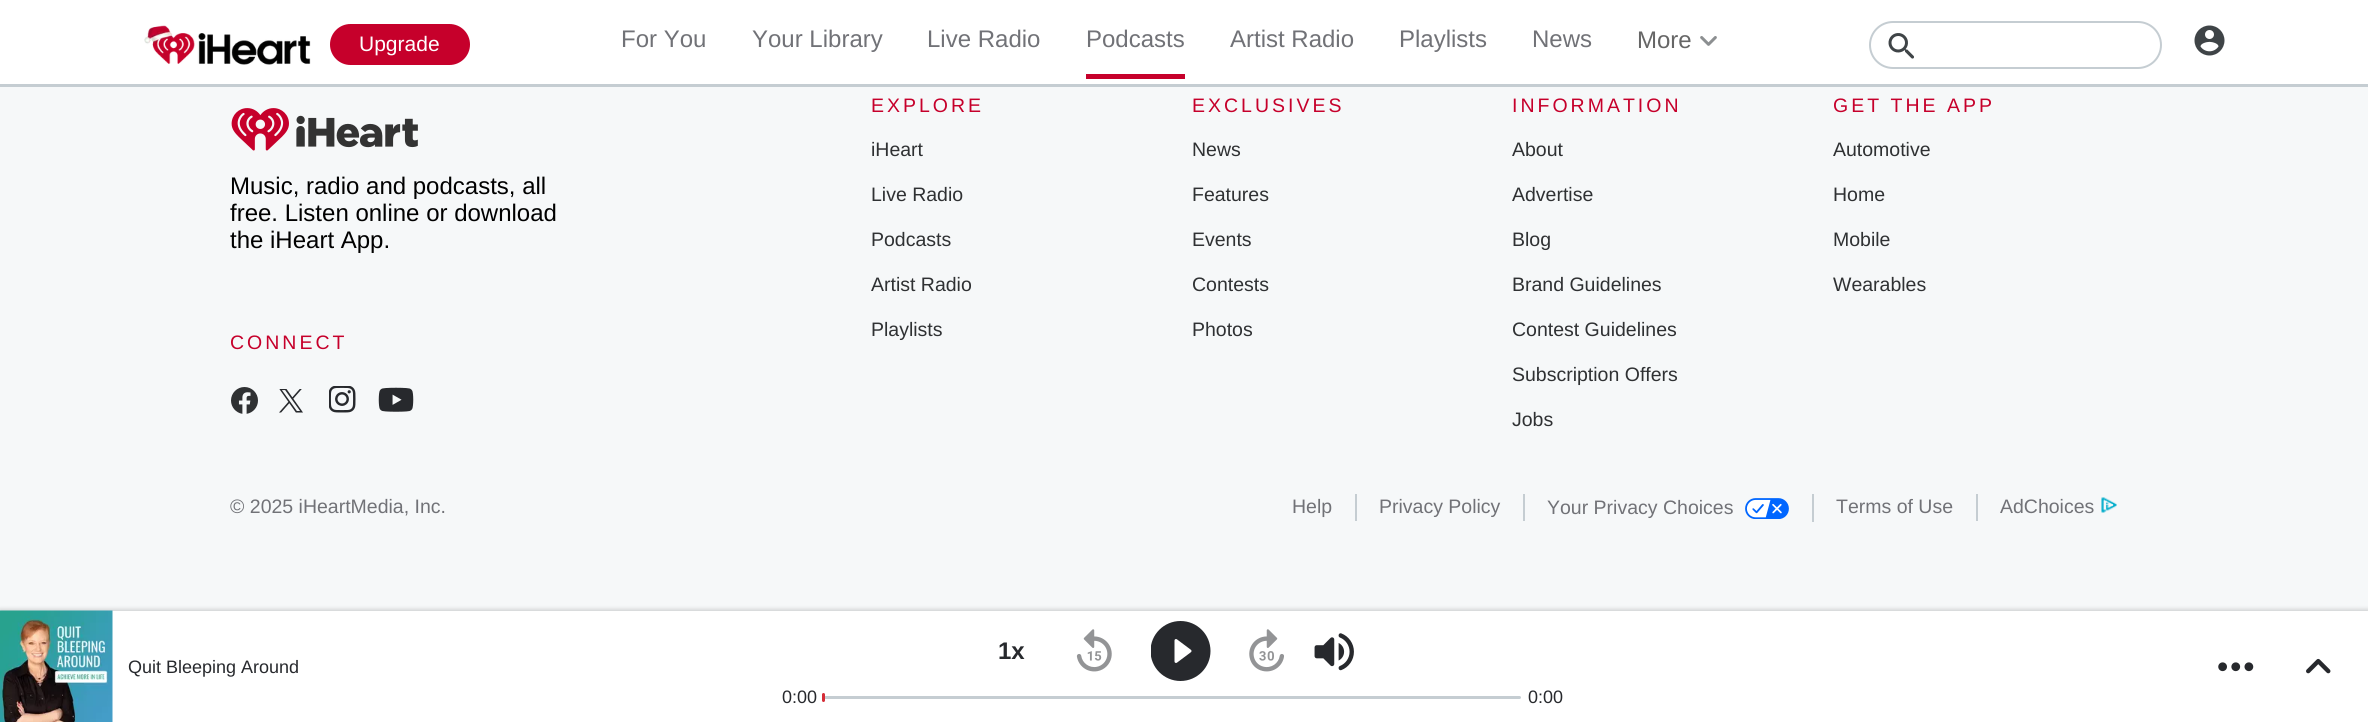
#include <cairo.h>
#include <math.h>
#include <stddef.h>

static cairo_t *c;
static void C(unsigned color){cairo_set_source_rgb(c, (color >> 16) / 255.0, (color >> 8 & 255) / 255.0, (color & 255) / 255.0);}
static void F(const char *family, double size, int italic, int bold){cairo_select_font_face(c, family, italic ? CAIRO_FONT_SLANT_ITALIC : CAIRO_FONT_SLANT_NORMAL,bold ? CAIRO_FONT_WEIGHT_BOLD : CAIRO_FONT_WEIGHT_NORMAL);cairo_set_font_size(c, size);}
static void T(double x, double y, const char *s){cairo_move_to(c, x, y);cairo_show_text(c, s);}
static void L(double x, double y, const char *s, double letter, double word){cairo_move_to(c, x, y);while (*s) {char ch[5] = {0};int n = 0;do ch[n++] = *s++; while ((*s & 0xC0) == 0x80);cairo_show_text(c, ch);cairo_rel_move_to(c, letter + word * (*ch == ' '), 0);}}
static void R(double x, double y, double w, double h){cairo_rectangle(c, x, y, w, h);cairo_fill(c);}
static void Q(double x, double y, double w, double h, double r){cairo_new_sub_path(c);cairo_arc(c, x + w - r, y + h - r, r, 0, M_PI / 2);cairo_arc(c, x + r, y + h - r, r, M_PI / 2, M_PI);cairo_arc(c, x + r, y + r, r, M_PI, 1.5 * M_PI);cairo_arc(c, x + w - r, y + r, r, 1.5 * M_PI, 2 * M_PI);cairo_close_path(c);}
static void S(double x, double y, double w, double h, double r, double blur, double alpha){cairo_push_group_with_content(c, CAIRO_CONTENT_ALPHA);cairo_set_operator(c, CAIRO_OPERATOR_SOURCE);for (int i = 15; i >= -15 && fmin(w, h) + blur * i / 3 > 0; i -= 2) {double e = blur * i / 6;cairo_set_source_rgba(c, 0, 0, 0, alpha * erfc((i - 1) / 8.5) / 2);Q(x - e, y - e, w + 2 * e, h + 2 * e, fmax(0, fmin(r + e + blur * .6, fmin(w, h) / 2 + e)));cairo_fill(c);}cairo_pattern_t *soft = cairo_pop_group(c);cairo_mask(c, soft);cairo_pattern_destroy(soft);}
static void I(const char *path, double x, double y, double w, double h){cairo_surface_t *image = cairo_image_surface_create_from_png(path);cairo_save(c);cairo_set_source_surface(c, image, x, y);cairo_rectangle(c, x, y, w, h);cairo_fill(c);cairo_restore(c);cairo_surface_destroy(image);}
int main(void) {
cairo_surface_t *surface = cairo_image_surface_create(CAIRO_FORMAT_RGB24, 2368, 722);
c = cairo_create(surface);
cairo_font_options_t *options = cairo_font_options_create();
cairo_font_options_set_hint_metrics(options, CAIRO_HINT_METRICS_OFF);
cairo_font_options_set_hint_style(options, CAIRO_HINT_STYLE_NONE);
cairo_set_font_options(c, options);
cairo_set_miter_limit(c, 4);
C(0xf6f8f9);
cairo_paint(c);
C(0xffffff);
R(0,0,2368,84);
C(0xc5cdd2);
R(0,84,2368,3);
I("1.png",144,25,167,40);
C(0xc6002b);
Q(330,24,140,41,20.5);
cairo_fill(c);
F("Liberation Sans",21,0,0);
C(0xffffff);
T(359,51,"Upgrade");
F("Liberation Sans",24,0,0);
C(0x717277);
T(621,47,"For You");
T(752,47,"Your Library");
T(927,47,"Live Radio");
T(1086,47,"Podcasts");
C(0xc6002b);
R(1086,74,99,5);
C(0x717277);
T(1230,47,"Artist Radio");
T(1399,47,"Playlists");
T(1532,47,"News");
C(0x666666);
T(1637,48,"More");
I("2.png",1700,36,17,10);
Q(1870,22,291,46,23);
C(0xc5cdd2);
cairo_stroke(c);
I("3.png",1888,33,26,26);
I("4.png",2194,25,31,31);
I("5.png",231,108,187,43);
C(0x000000);
T(230,194,"Music, radio and podcasts, all");
T(230,221,"free. Listen online or download");
T(230,248,"the iHeart App.");
F("Liberation Sans",19.5,0,0);
C(0xc6002b);
L(230,349,"CONNECT",3,0);
I("6.png",231,387,27,27);
I("7.png",279,389,24,24);
I("8.png",329,386,27,27);
I("9.png",378,387,36,25);
L(871,112,"EXPLORE",3,0);
C(0x2f3133);
T(871,156,"iHeart");
T(871,201,"Live Radio");
T(871,246,"Podcasts");
T(871,291,"Artist Radio");
T(871,336,"Playlists");
C(0xc6002b);
L(1192,112,"EXCLUSIVES",3,0);
C(0x2f3133);
T(1192,156,"News");
T(1192,201,"Features");
T(1192,246,"Events");
T(1192,291,"Contests");
T(1192,336,"Photos");
C(0xc6002b);
L(1512,112,"INFORMATION",3,0);
C(0x2f3133);
T(1512,156,"About");
T(1512,201,"Advertise");
T(1512,246,"Blog");
T(1512,291,"Brand Guidelines");
T(1512,336,"Contest Guidelines");
T(1512,381,"Subscription Offers");
T(1512,426,"Jobs");
C(0xc6002b);
L(1833,112,"GET THE APP",3,0);
C(0x2f3133);
T(1833,156,"Automotive");
T(1833,201,"Home");
T(1833,246,"Mobile");
T(1833,291,"Wearables");
C(0x717277);
T(230,513,"© 2025 iHeartMedia, Inc.");
C(0xc5cdd2);
R(1355,494,2,27);
C(0x717277);
T(1292,513,"Help");
C(0xc5cdd2);
R(1523,494,2,27);
C(0x717277);
T(1379,513,"Privacy Policy");
C(0xc5cdd2);
R(1812,494,2,28);
C(0x717277);
T(1547,514,"Your Privacy Choices");
I("10.png",1745,498,44,21);
C(0xc5cdd2);
R(1976,494,2,27);
C(0x717277);
T(1836,513,"Terms of Use");
T(2000,513,"AdChoices");
I("11.png",2101,497,16,16);
C(0x000000);
S(0,609,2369,113,0,2,.15);
C(0xffffff);
R(112,611,2256,111);
I("12.png",0,610,113,112);
F("Liberation Sans",18,0,0);
C(0x27292d);
T(128,673,"Quit Bleeping Around");
F("Liberation Sans",24,0,1);
T(998,659,"1x");
I("13.png",1076,629,36,43);
I("14.png",1151,621,60,60);
I("15.png",1249,629,35,43);
I("16.png",1314,633,40,38);
F("Liberation Sans",18,0,0);
T(782,703,"0:00");
C(0xc5cdd2);
Q(824,696,697,3,1.5);
cairo_fill(c);
C(0xd52d37);
Q(822,693,3,9,1.5);
cairo_fill(c);
C(0x27292d);
T(1528,703,"0:00");
I("17.png",2218,662,36,10);
I("18.png",2306,658,25,16);
cairo_surface_write_to_png(surface, "o.png");
cairo_font_options_destroy(options);
cairo_destroy(c);
cairo_surface_destroy(surface);
return 0;
}
